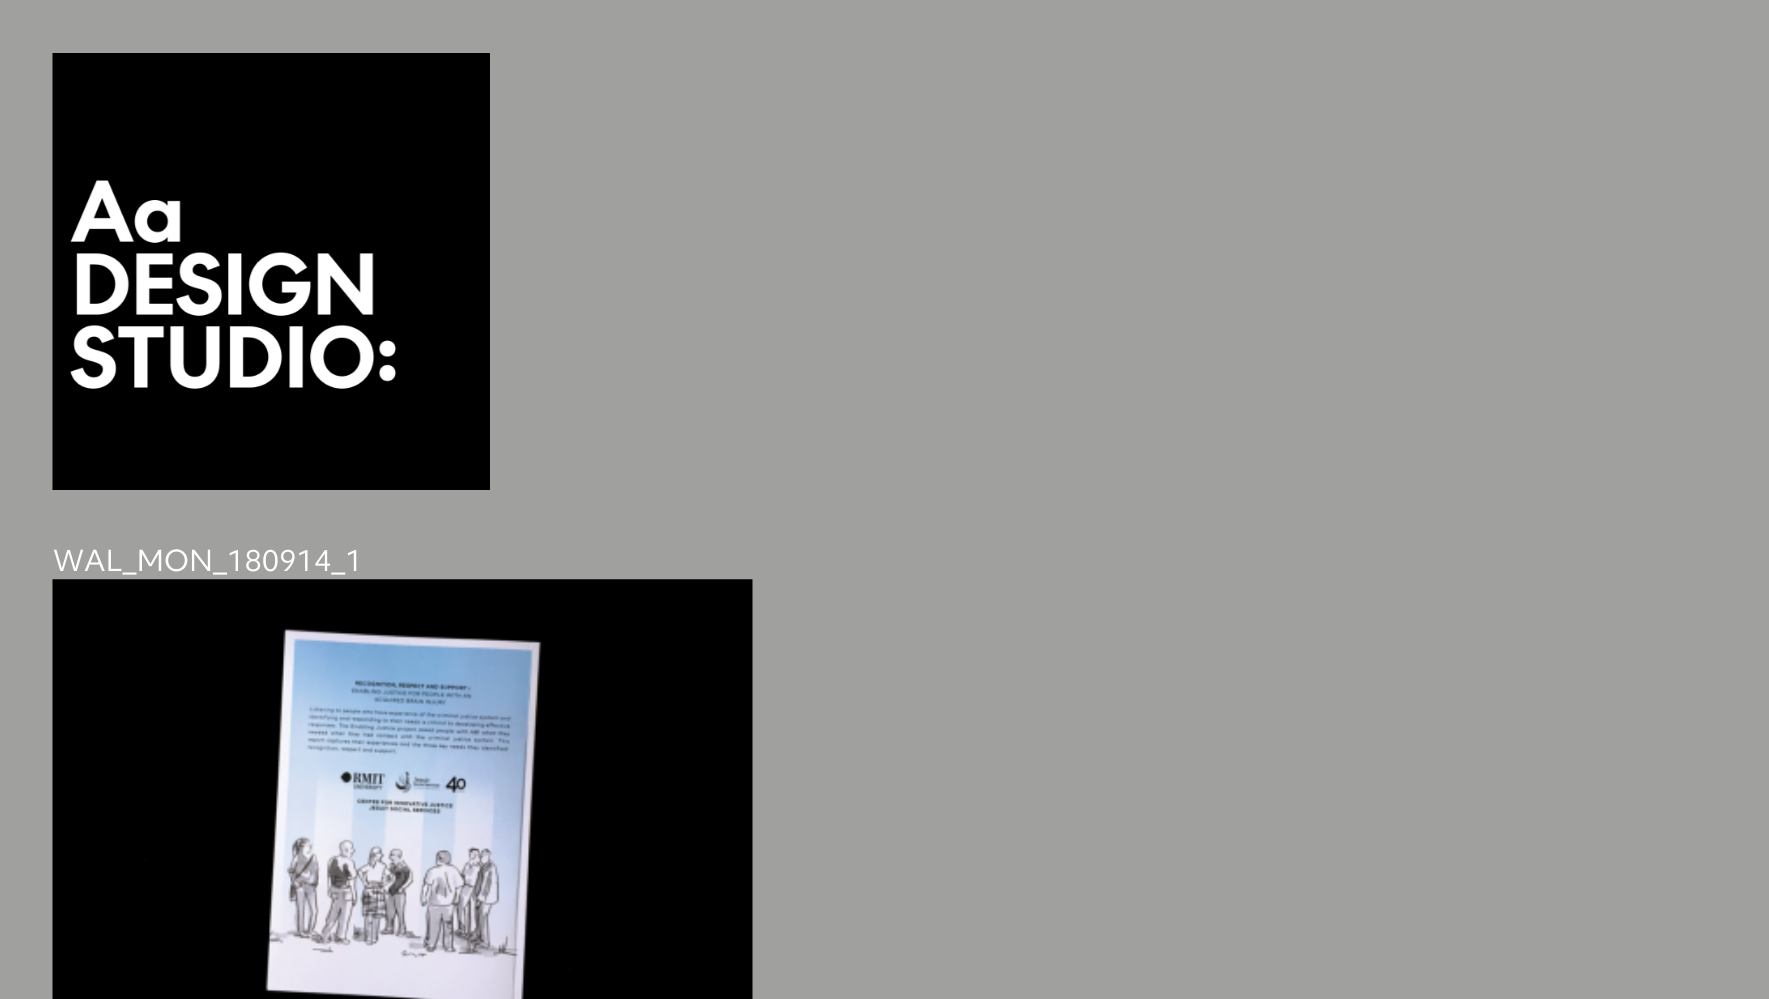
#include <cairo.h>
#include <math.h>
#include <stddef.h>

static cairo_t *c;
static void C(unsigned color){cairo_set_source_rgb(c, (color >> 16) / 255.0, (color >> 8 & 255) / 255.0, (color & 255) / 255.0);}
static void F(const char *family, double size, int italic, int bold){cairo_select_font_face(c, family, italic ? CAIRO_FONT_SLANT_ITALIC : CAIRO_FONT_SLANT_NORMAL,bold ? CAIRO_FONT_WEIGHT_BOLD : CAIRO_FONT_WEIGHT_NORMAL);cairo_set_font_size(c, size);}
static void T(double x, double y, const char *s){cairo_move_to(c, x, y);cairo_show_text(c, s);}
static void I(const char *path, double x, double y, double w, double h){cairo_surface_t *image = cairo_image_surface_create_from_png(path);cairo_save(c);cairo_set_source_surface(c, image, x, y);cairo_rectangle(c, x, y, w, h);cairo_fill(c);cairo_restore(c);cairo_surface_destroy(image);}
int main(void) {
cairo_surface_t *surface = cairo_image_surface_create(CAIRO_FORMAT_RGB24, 1769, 999);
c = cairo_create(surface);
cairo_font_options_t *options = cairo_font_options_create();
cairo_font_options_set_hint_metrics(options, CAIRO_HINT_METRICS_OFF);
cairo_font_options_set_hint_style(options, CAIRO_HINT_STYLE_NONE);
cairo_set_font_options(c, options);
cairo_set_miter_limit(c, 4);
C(0xa0a09f);
cairo_paint(c);
I("1.png",52,53,438,437);
F("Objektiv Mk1",28,0,0);
C(0xffffff);
T(53,571,"WAL_MON_180914_1");
I("2.png",52,579,701,420);
cairo_surface_write_to_png(surface, "o.png");
cairo_font_options_destroy(options);
cairo_destroy(c);
cairo_surface_destroy(surface);
return 0;
}
